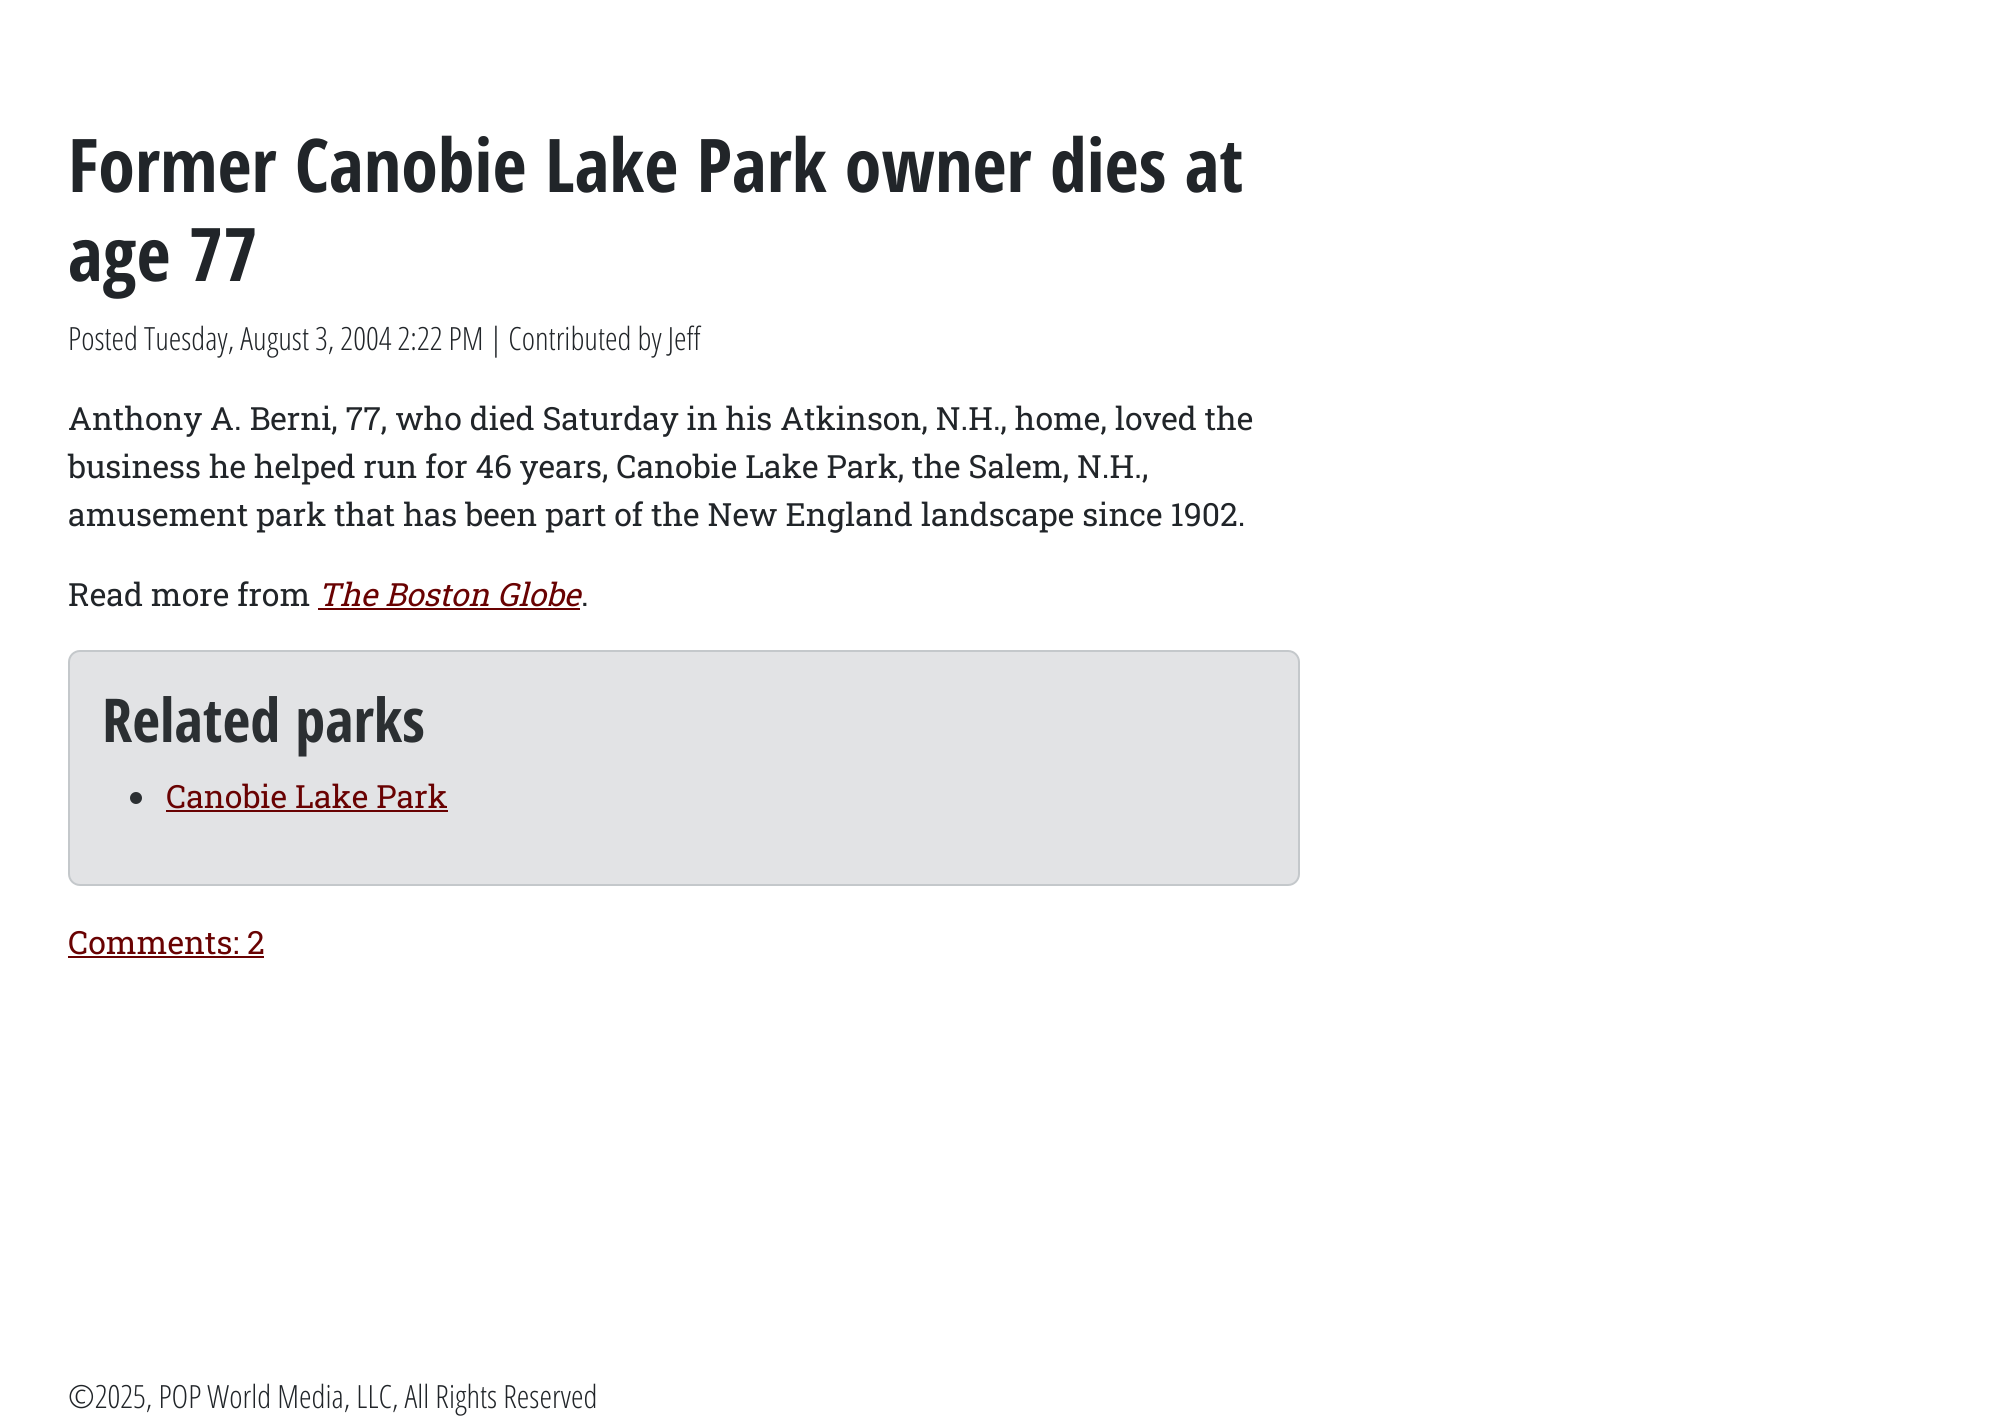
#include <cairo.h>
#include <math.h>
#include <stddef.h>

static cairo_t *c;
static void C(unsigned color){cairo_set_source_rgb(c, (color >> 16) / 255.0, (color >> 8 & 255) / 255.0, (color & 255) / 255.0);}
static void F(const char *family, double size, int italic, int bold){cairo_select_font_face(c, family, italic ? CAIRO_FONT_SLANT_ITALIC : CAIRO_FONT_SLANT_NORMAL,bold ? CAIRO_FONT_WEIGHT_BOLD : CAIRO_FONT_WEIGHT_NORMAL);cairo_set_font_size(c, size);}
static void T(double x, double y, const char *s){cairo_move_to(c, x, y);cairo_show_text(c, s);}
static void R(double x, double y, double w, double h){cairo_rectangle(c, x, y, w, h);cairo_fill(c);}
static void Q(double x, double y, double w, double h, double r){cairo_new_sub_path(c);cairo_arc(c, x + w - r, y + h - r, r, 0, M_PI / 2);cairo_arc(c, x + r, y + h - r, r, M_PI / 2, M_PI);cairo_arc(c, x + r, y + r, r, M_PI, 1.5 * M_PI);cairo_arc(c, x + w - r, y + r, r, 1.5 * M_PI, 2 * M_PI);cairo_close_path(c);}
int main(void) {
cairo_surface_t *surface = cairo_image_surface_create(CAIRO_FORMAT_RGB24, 2007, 1416);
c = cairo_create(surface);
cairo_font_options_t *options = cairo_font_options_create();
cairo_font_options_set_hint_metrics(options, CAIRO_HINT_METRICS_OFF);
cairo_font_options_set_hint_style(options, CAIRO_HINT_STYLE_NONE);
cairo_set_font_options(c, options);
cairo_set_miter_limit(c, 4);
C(0xffffff);
cairo_paint(c);
F("Open Sans Condensed",74.1,0,1);
C(0x212529);
T(68,192,"Former Canobie Lake Park owner dies at");
T(68,281,"age 77");
F("Open Sans Condensed Light",32,0,0);
T(68,350,"Posted Tuesday, August 3, 2004 2:22 PM | Contributed by Jeff");
F("Roboto Slab",32,0,0);
T(68,430,"Anthony A. Berni, 77, who died Saturday in his Atkinson, N.H., home, loved the");
T(68,478,"business he helped run for 46 years, Canobie Lake Park, the Salem, N.H.,");
T(68,526,"amusement park that has been part of the New England landscape since 1902.");
T(68,606,"Read more from");
F("Roboto Slab",32,1,0);
C(0x690202);
T(318,606,"The Boston Globe");
R(318,608,262,2);
F("Roboto Slab",32,0,0);
C(0x212529);
T(581,606,".");
C(0xe2e3e5);
Q(69,651,1230,234,11);
cairo_fill_preserve(c);
C(0xc4c8cb);
cairo_stroke(c);
F("Open Sans Condensed",60.5,0,1);
C(0x2b2f32);
T(102,742,"Related parks");
cairo_new_path(c);
cairo_arc(c,136,798,6,0,2 * M_PI);
cairo_fill(c);
F("Roboto Slab",32,0,0);
C(0x690202);
T(166,808,"Canobie Lake Park");
R(166,810,282,2);
T(68,954,"Comments: 2");
R(68,956,196,2);
F("Open Sans Condensed Light",32,0,0);
C(0x212529);
T(68,1408,"©2025, POP World Media, LLC, All Rights Reserved");
cairo_surface_write_to_png(surface, "o.png");
cairo_font_options_destroy(options);
cairo_destroy(c);
cairo_surface_destroy(surface);
return 0;
}
